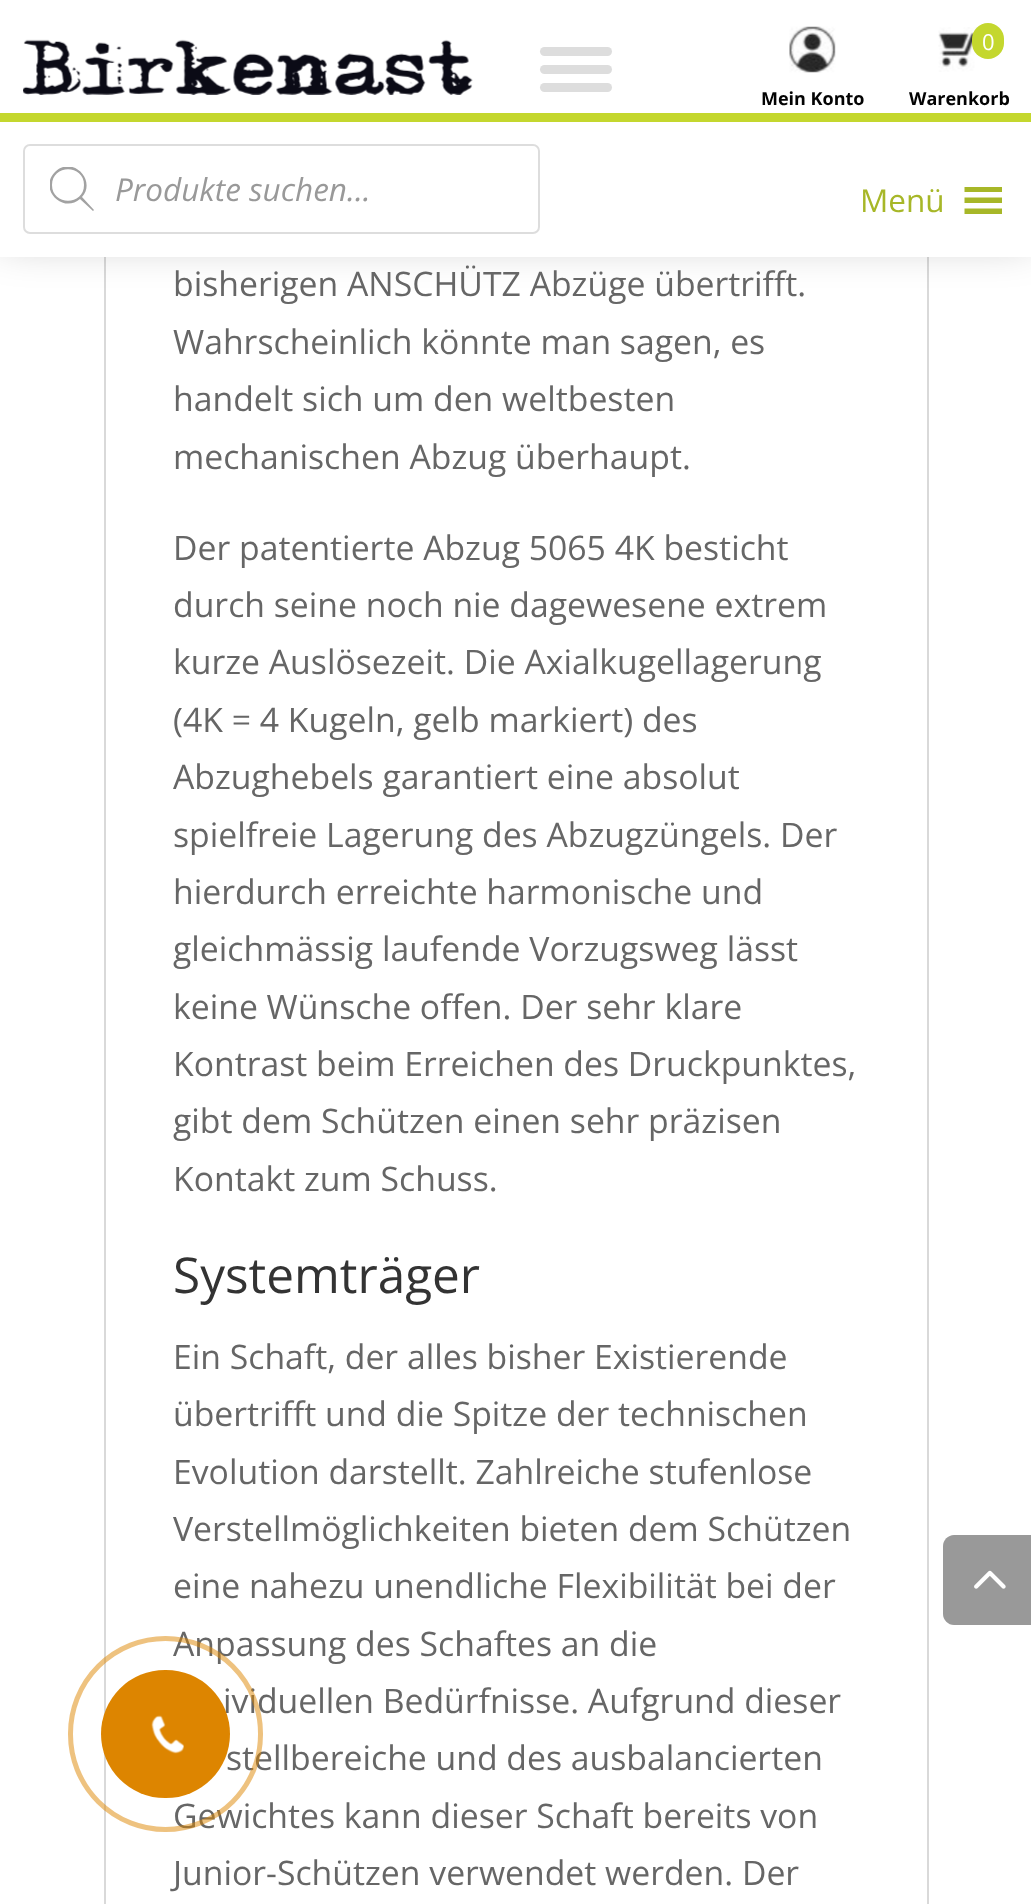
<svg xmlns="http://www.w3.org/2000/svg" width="1031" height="1904">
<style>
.a{font:bold 18px Open Sans;fill:#030303}
.b{font:22px Open Sans;fill:#fff}
.c{font:italic 31.5px Open Sans;fill:#999}
.d{font:31.5px Open Sans;fill:#a7b728}
.e{font:33.75px Open Sans;fill:#666}
.f{font:49.5px Open Sans;fill:#333}
</style>
<defs>
<clipPath id="clip1"><path d="M50 167h45v45H50z"/></clipPath>
</defs>
<rect width="100%" height="100%" fill="#fff"/>
<path fill="none" stroke="#d9d9d9" stroke-width="2" d="M105 -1h823v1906H105z"/>
<path fill="#0000004d" filter="blur(22.5px)" d="M0 -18h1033v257H0z"/>
<path fill="#fff" d="M0 0h1031v257H0z"/>
<path fill="#c4d72e" d="M0 113h1031v9H0z"/>
<image href="1.png" x="23" y="39" width="450" height="56"/>
<rect fill="#ddd" x="540" y="47" width="72" height="9" rx="4.5"/>
<rect fill="#ddd" x="540" y="65" width="72" height="9" rx="4.5"/>
<rect fill="#ddd" x="540" y="83" width="72" height="9" rx="4.5"/>
<image href="2.png" x="789" y="26" width="47" height="47"/>
<image href="3.png" x="938" y="27" width="46" height="45"/>
<rect fill="#c4d72e" x="972" y="23" width="32" height="36" rx="16"/>
<rect fill="none" stroke="#ddd" stroke-width="2" x="24" y="145" width="515" height="88" rx="6"/>
<g clip-path="url(#clip1)">
<path fill="#a2a2a2" d="M94 210l-12-13c15-17-10-42-27-25c-17 17 8 42 25 27l13 12zm-42-25c0-21 32-21 32 0c0 21-32 21-32 0z"/>
</g>
<path fill="#a7b728" d="M964.5 214h37.5v-5.5h-37.5zm0-27v5h37.5v-5zm0 16h37.5v-5.5h-37.5z"/>
<path fill="#999" d="M954 1535h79v90h-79c-6 0-11-5-11-11v-68c0-6 5-11 11-11z"/>
<image href="4.png" x="974" y="1570" width="32" height="19"/>
<text class="a" x="761" y="105">Mein Konto</text>
<text class="b" x="982" y="50">0</text>
<text class="a" x="909" y="105">Warenkorb</text>
<text class="c" x="115" y="201">Produkte suchen...</text>
<text class="d" x="860" y="212">Menü</text>
<text class="e" x="173" y="296">bisherigen ANSCHÜTZ Abzüge übertrifft.</text>
<text class="e" x="173" y="354">Wahrscheinlich könnte man sagen, es</text>
<text class="e" x="173" y="411">handelt sich um den weltbesten</text>
<text class="e" x="173" y="469">mechanischen Abzug überhaupt.</text>
<text class="e" x="173" y="560">Der patentierte Abzug 5065 4K besticht</text>
<text class="e" x="173" y="617">durch seine noch nie dagewesene extrem</text>
<text class="e" x="173" y="674">kurze Auslösezeit. Die Axialkugellagerung</text>
<text class="e" x="173" y="732">(4K = 4 Kugeln, gelb markiert) des</text>
<text class="e" x="173" y="789">Abzughebels garantiert eine absolut</text>
<text class="e" x="173" y="847">spielfreie Lagerung des Abzugzüngels. Der</text>
<text class="e" x="173" y="904">hierdurch erreichte harmonische und</text>
<text class="e" x="173" y="961">gleichmässig laufende Vorzugsweg lässt</text>
<text class="e" x="173" y="1019">keine Wünsche offen. Der sehr klare</text>
<text class="e" x="173" y="1076">Kontrast beim Erreichen des Druckpunktes,</text>
<text class="e" x="173" y="1133">gibt dem Schützen einen sehr präzisen</text>
<text class="e" x="173" y="1191">Kontakt zum Schuss.</text>
<text class="f" x="173" y="1293">Systemträger</text>
<text class="e" x="173" y="1369">Ein Schaft, der alles bisher Existierende</text>
<text class="e" x="173" y="1426">übertrifft und die Spitze der technischen</text>
<text class="e" x="173" y="1484">Evolution darstellt. Zahlreiche stufenlose</text>
<text class="e" x="173" y="1541">Verstellmöglichkeiten bieten dem Schützen</text>
<text class="e" x="173" y="1598">eine nahezu unendliche Flexibilität bei der</text>
<text class="e" x="173" y="1656">Anpassung des Schaftes an die</text>
<text class="e" x="223" y="1713">ividuellen Bedürfnisse. Aufgrund dieser</text>
<text class="e" x="226" y="1770">stellbereiche und des ausbalancierten</text>
<text class="e" x="173" y="1828">Gewichtes kann dieser Schaft bereits von</text>
<text class="e" x="173" y="1885">Junior-Schützen verwendet werden. Der</text>
<rect fill="none" stroke="#dd850080" stroke-width="5" x="70.5" y="1638.5" width="190" height="191" rx="95"/>
<rect fill="#dd8500" x="101" y="1670" width="129" height="128" rx="64"/>
<image href="5.png" x="151" y="1715" width="33" height="39"/>
</svg>
